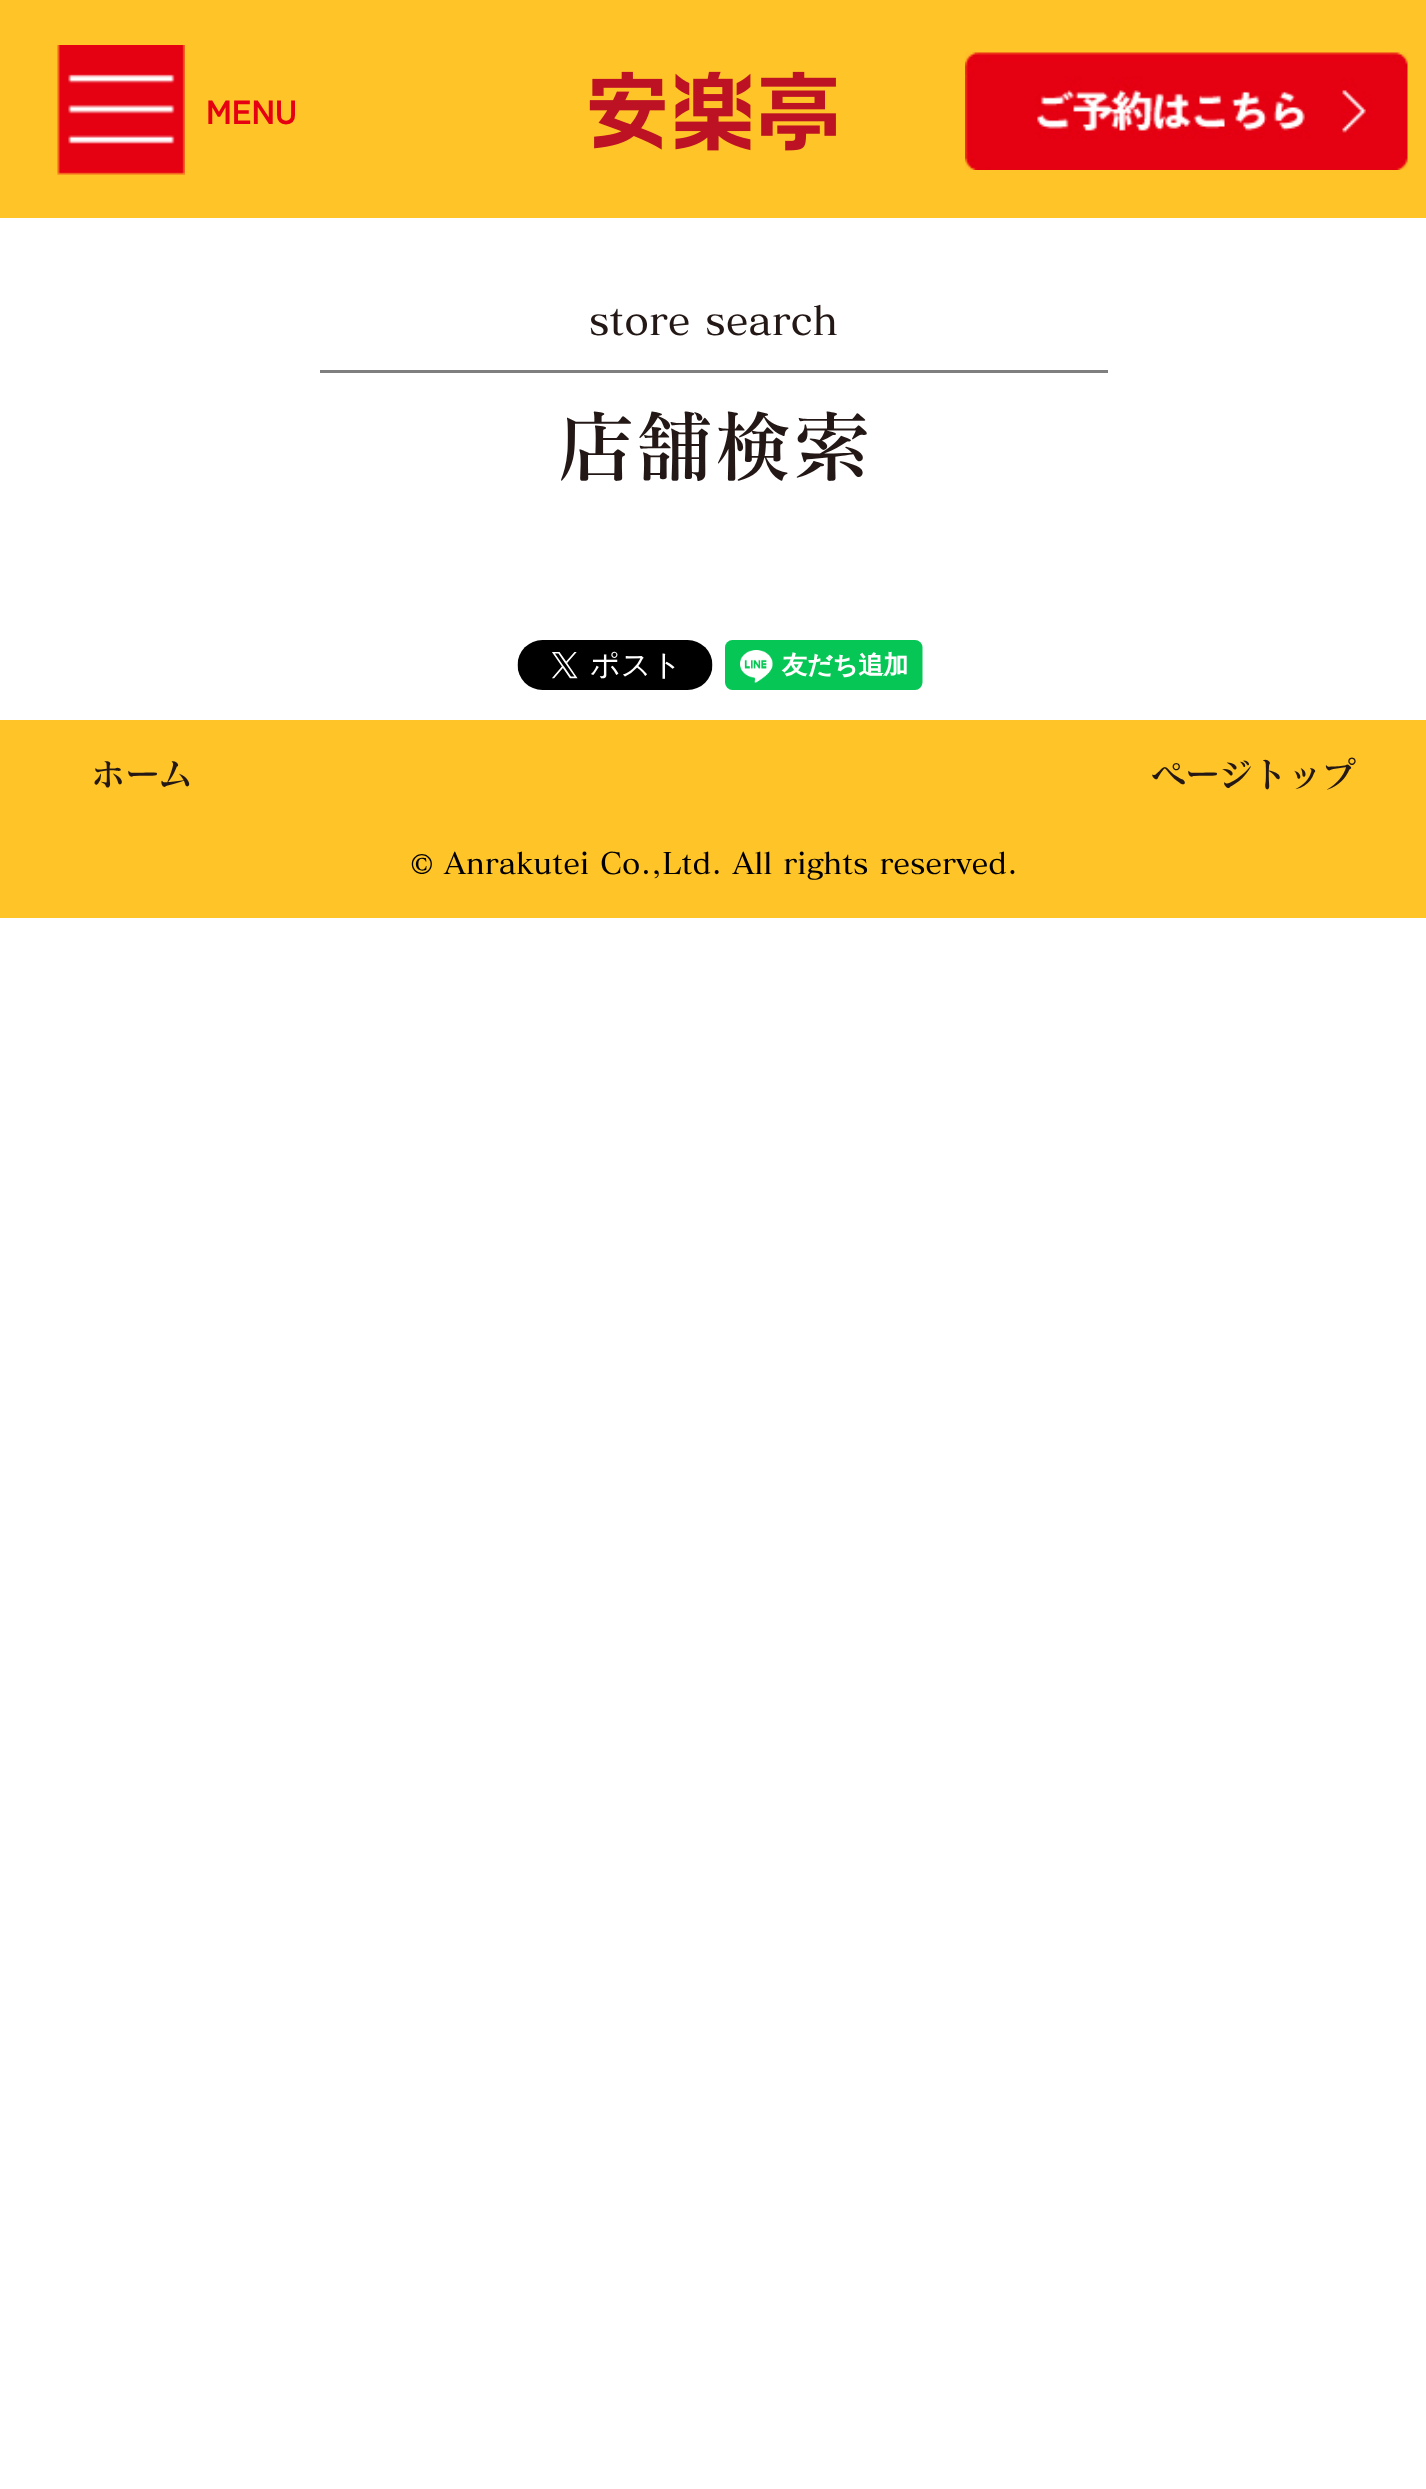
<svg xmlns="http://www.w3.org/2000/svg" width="1426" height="2489">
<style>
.a{font:bold 33.5px Zen Kaku Gothic New;fill:#e50112}
.b{font:600 40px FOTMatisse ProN;fill:#231815}
.c{font:600 78.5px FOTMatisse ProN;fill:#231815}
.d{font:600 34.5px FOTMatisse ProN;fill:#231815}
.e{font:600 29.65px FOTMatisse ProN;fill:#000}
</style>
<rect width="100%" height="100%" fill="#fff"/>
<path fill="#ffc528" d="M0 0h1426v218H0z"/>
<image href="1.png" x="57" y="45" width="128" height="130"/>
<image href="2.png" x="965" y="52" width="443" height="118"/>
<image href="3.png" x="589" y="71" width="247" height="80"/>
<path fill="#7f7f7f" d="M320 370h788v3H320z"/>
<image href="4.png" x="517" y="640" width="196" height="50"/>
<image href="5.png" x="725" y="640" width="198" height="50"/>
<path fill="#ffc528" d="M0 720h1426v198H0z"/>
<text class="a" x="206" y="124">MENU</text>
<text class="b" x="589" y="335">store search</text>
<text class="c" x="557" y="475">店舗検索</text>
<text class="d" x="91" y="787">ホーム</text>
<text class="d" x="1151" y="787">ページトップ</text>
<text class="e" x="410" y="874">© Anrakutei Co.,Ltd. All rights reserved.</text>
</svg>
